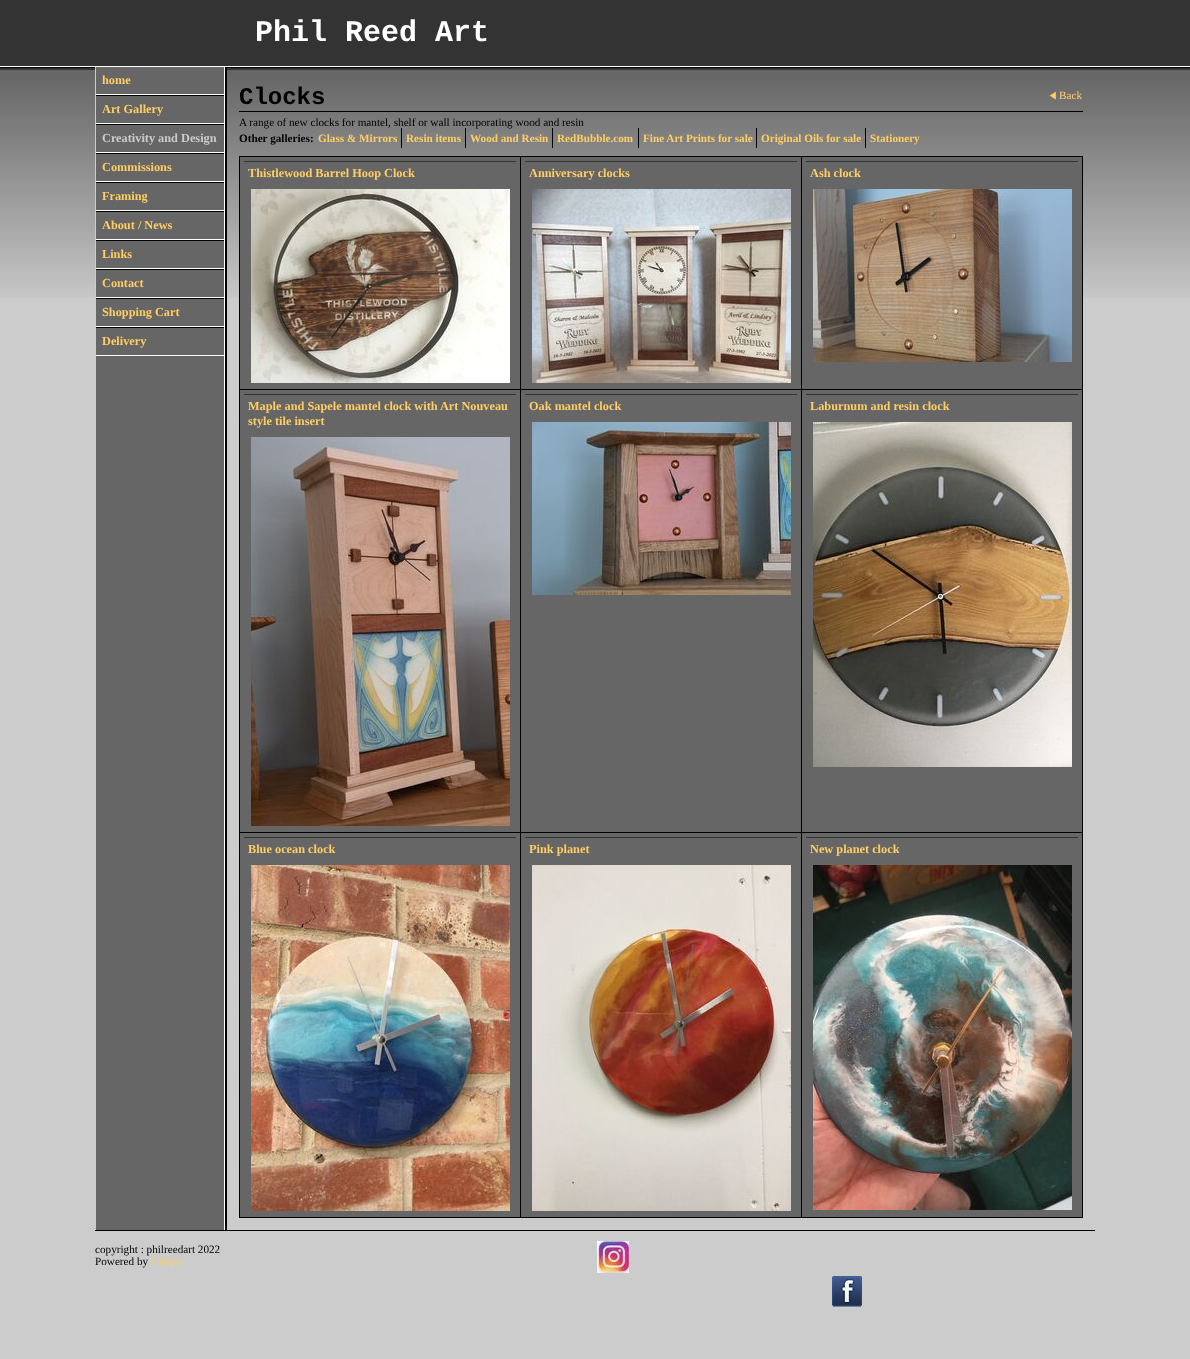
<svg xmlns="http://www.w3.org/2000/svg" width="1190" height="1359">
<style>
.a{font:bold 30px Liberation Mono;fill:#fff}
.b{font:bold 12.3px Liberation Serif;fill:#ffce63}
.c{font:bold 12.3px Liberation Serif;fill:#ccc}
.d{font:bold 24px Liberation Mono;fill:#000}
.e{font:11.2px Liberation Serif;fill:#ffce63}
.f{font:11.2px Liberation Serif;fill:#000}
.g{font:bold 11.2px Liberation Serif;fill:#000}
.h{font:bold 11.2px Liberation Serif;fill:#ffce63}
</style>
<rect width="100%" height="100%" fill="#ccc"/>
<path fill="#333" d="M0 0h1190v66H0z"/>
<path fill="#fff" d="M0 66h1190v1H0z"/>
<image href="1.png" x="0" y="68" width="1190" height="230"/>
<path fill="#000" d="M0 67h1190v1H0z"/>
<path fill="#666" d="M96 67h128v1163H96z"/>
<path fill="#000" d="M225 67h2v1163H225z"/>
<path fill="#fff" d="M224 67h1v1163H224z"/>
<path fill="#ccc" d="M95 67h1v231H95z"/>
<path fill="#fff" d="M96 94h128v1H96z"/>
<path fill="#000" d="M96 95h128v1H96z"/>
<path fill="#fff" d="M96 123h128v1H96z"/>
<path fill="#000" d="M96 124h128v1H96z"/>
<path fill="#fff" d="M96 152h128v1H96z"/>
<path fill="#000" d="M96 153h128v1H96z"/>
<path fill="#fff" d="M96 181h128v1H96z"/>
<path fill="#000" d="M96 182h128v1H96z"/>
<path fill="#fff" d="M96 210h128v1H96z"/>
<path fill="#000" d="M96 211h128v1H96z"/>
<path fill="#fff" d="M96 239h128v1H96z"/>
<path fill="#000" d="M96 240h128v1H96z"/>
<path fill="#fff" d="M96 268h128v1H96z"/>
<path fill="#000" d="M96 269h128v1H96z"/>
<path fill="#fff" d="M96 297h128v1H96z"/>
<path fill="#000" d="M96 298h128v1H96z"/>
<path fill="#fff" d="M96 326h128v1H96z"/>
<path fill="#000" d="M96 327h128v1H96z"/>
<path fill="#fff" d="M96 355h128v1H96z"/>
<path fill="#000" d="M239 111h844v1H239z"/>
<image href="2.png" x="1049" y="91" width="7" height="9"/>
<path fill="#000" d="M401 128h1v20H401z"/>
<path fill="#000" d="M465 128h1v20H465z"/>
<path fill="#000" d="M552 128h1v20H552z"/>
<path fill="#000" d="M638 128h1v20H638z"/>
<path fill="#000" d="M756 128h1v20H756z"/>
<path fill="#000" d="M865 128h1v20H865z"/>
<path fill="#000" d="M239 156h844v1H239z"/>
<path fill="#000" d="M239 156h1v1062H239z"/>
<path fill="#666" d="M240 157h280v232H240z"/>
<path fill="#000" d="M520 157h1v1061H520z"/>
<path fill="#000" d="M240 389h281v1H240z"/>
<path fill="#333" d="M244 161h272v1H244z"/>
<image href="3.png" x="251" y="189" width="259" height="194"/>
<path fill="#666" d="M521 157h280v232H521z"/>
<path fill="#000" d="M801 157h1v1061H801z"/>
<path fill="#000" d="M521 389h281v1H521z"/>
<path fill="#333" d="M525 161h272v1H525z"/>
<image href="4.png" x="532" y="189" width="259" height="194"/>
<path fill="#666" d="M802 157h280v232H802z"/>
<path fill="#000" d="M1082 157h1v1061H1082z"/>
<path fill="#000" d="M802 389h281v1H802z"/>
<path fill="#333" d="M806 161h272v1H806z"/>
<image href="5.png" x="813" y="189" width="259" height="173"/>
<path fill="#666" d="M240 390h280v442H240z"/>
<path fill="#000" d="M240 832h843v1H240z"/>
<path fill="#333" d="M244 394h272v1H244z"/>
<image href="6.png" x="251" y="437" width="259" height="389"/>
<path fill="#666" d="M521 390h280v442H521z"/>
<path fill="#333" d="M525 394h272v1H525z"/>
<image href="7.png" x="532" y="422" width="259" height="173"/>
<path fill="#666" d="M802 390h280v442H802z"/>
<path fill="#333" d="M806 394h272v1H806z"/>
<image href="8.png" x="813" y="422" width="259" height="345"/>
<path fill="#666" d="M240 833h280v384H240z"/>
<path fill="#000" d="M240 1217h843v1H240z"/>
<path fill="#333" d="M244 837h272v1H244z"/>
<image href="9.png" x="251" y="865" width="259" height="346"/>
<path fill="#666" d="M521 833h280v384H521z"/>
<path fill="#333" d="M525 837h272v1H525z"/>
<image href="10.png" x="532" y="865" width="259" height="346"/>
<path fill="#666" d="M802 833h280v384H802z"/>
<path fill="#333" d="M806 837h272v1H806z"/>
<image href="11.png" x="813" y="865" width="259" height="345"/>
<path fill="#000" d="M95 1230h1000v1H95z"/>
<image href="12.png" x="597" y="1241" width="32" height="32"/>
<image href="13.png" x="832" y="1276" width="30" height="31"/>
<text class="a" x="255" y="41">Phil Reed Art</text>
<text class="b" x="102" y="84">home</text>
<text class="b" x="102" y="113">Art Gallery</text>
<text class="c" x="102" y="142">Creativity and Design</text>
<text class="b" x="102" y="171">Commissions</text>
<text class="b" x="102" y="200">Framing</text>
<text class="b" x="102" y="229">About / News</text>
<text class="b" x="102" y="258">Links</text>
<text class="b" x="102" y="287">Contact</text>
<text class="b" x="102" y="316">Shopping Cart</text>
<text class="b" x="102" y="345">Delivery</text>
<text class="d" x="239" y="104">Clocks</text>
<text class="e" x="1059" y="99">Back</text>
<text class="f" x="239" y="126">A range of new clocks for mantel, shelf or wall incorporating wood and resin</text>
<text class="g" x="239" y="142">Other galleries:</text>
<text class="h" x="318" y="142">Glass &amp; Mirrors</text>
<text class="h" x="406" y="142">Resin items</text>
<text class="h" x="470" y="142">Wood and Resin</text>
<text class="h" x="557" y="142">RedBubble.com</text>
<text class="h" x="643" y="142">Fine Art Prints for sale</text>
<text class="h" x="761" y="142">Original Oils for sale</text>
<text class="h" x="870" y="142">Stationery</text>
<text class="b" x="248" y="177">Thistlewood Barrel Hoop Clock</text>
<text class="b" x="529" y="177">Anniversary clocks</text>
<text class="b" x="810" y="177">Ash clock</text>
<text class="b" x="248" y="410">Maple and Sapele mantel clock with Art Nouveau</text>
<text class="b" x="248" y="425">style tile insert</text>
<text class="b" x="529" y="410">Oak mantel clock</text>
<text class="b" x="810" y="410">Laburnum and resin clock</text>
<text class="b" x="248" y="853">Blue ocean clock</text>
<text class="b" x="529" y="853">Pink planet</text>
<text class="b" x="810" y="853">New planet clock</text>
<text class="f" x="95" y="1253">copyright : philreedart 2022</text>
<text class="f" x="95" y="1265">Powered by</text>
<text class="e" x="151" y="1265">Clikpic</text>
</svg>
